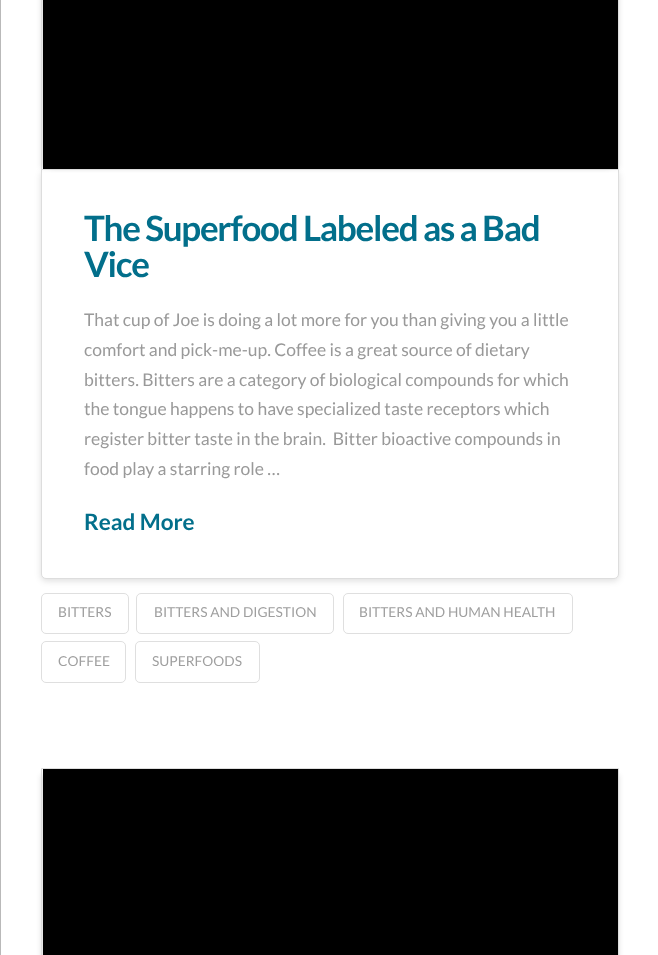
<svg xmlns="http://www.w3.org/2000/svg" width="658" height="955">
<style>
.a{font:bold 35px Lato;letter-spacing:-1.25px;fill:#026f8b}
.b{font:17.5px Lato;fill:#999}
.c{font:bold 22.5px Lato;fill:#026f8b}
.d{font:13.75px Lato;fill:#9f9f9f}
</style>
<rect width="100%" height="100%" fill="#fff"/>
<path fill="#b9b9b9" d="M0 0h1v955H0z"/>
<rect fill="#00000021" filter="blur(3px)" x="41" y="171" width="578" height="410" rx="5"/>
<path fill="#fff" stroke="#ddd" d="M41.5 169.5h577v404.5c0 2.5-2 4.5-4.5 4.5h-568c-2.5 0-4.5-2-4.5-4.5z"/>
<path fill="#00000021" filter="blur(2.5px)" d="M41 -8h568v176H41z"/>
<path fill="#00000021" filter="blur(2.5px)" d="M51 -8h568v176H51z"/>
<path fill="none" stroke="#ddd" d="M41.5 -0.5h577v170H41.5z"/>
<path fill="#000" d="M43 0h575v169H43z"/>
<rect fill="none" stroke="#dfdfdf" x="41.5" y="593.5" width="87" height="40" rx="4.5"/>
<rect fill="none" stroke="#dfdfdf" x="136.5" y="593.5" width="197" height="40" rx="4.5"/>
<rect fill="none" stroke="#dfdfdf" x="343.5" y="593.5" width="229" height="40" rx="4.5"/>
<rect fill="none" stroke="#dfdfdf" x="41.5" y="641.5" width="84" height="41" rx="4.5"/>
<rect fill="none" stroke="#dfdfdf" x="135.5" y="641.5" width="124" height="41" rx="4.5"/>
<path fill="#00000021" filter="blur(2.5px)" d="M41 775h568v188H41z"/>
<path fill="#00000021" filter="blur(2.5px)" d="M51 775h568v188H51z"/>
<path fill="none" stroke="#ddd" d="M41.5 768.5h577v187H41.5z"/>
<path fill="#000" d="M43 769h575v186H43z"/>
<text class="a" x="84" y="241">The Superfood Labeled as a Bad</text>
<text class="a" x="84" y="277">Vice</text>
<text class="b" x="84" y="326">That cup of Joe is doing a lot more for you than giving you a little</text>
<text class="b" x="84" y="356">comfort and pick-me-up. Coffee is a great source of dietary</text>
<text class="b" x="84" y="386">bitters. Bitters are a category of biological compounds for which</text>
<text class="b" x="84" y="415">the tongue happens to have specialized taste receptors which</text>
<text class="b" xml:space="preserve" x="84" y="445">register bitter taste in the brain.  Bitter bioactive compounds in</text>
<text class="b" x="84" y="475">food play a starring role …</text>
<text class="c" x="84" y="530">Read More</text>
<text class="d" x="58" y="617">BITTERS</text>
<text class="d" x="154" y="617">BITTERS AND DIGESTION</text>
<text class="d" x="359" y="617">BITTERS AND HUMAN HEALTH</text>
<text class="d" x="58" y="666">COFFEE</text>
<text class="d" x="152" y="666">SUPERFOODS</text>
</svg>
